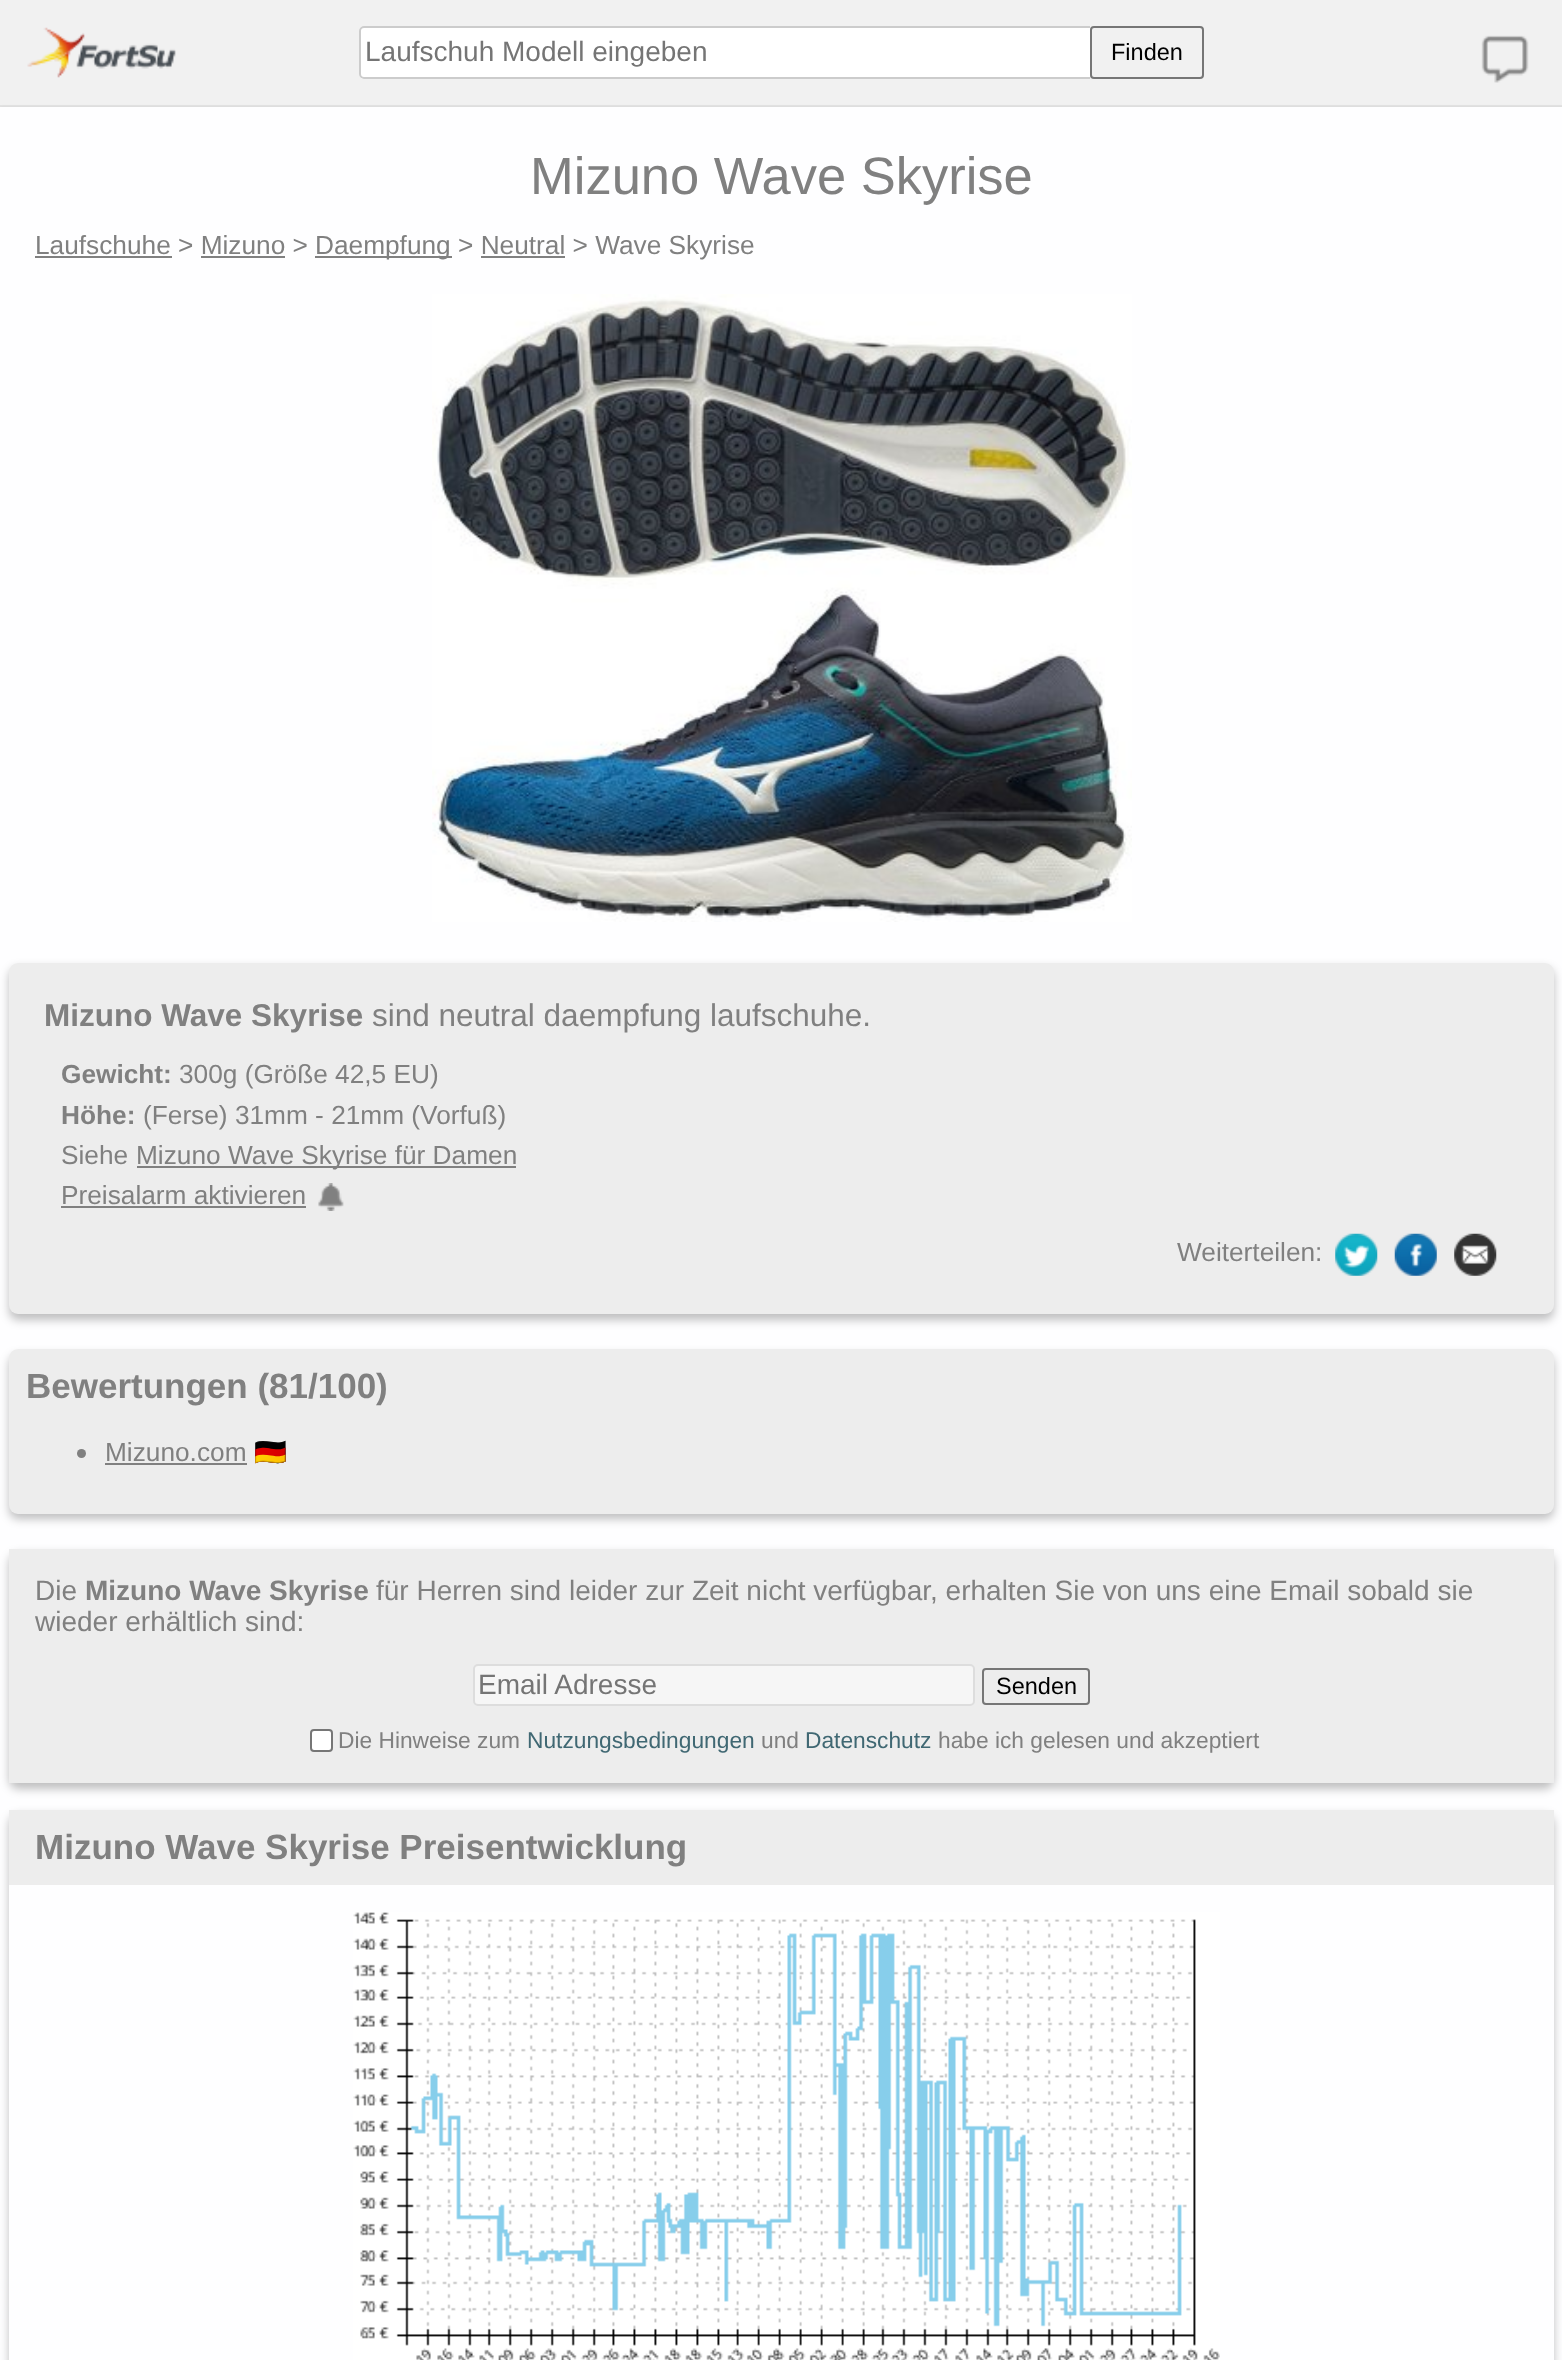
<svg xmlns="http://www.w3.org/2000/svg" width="1562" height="2360">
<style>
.a{font:28px Liberation Sans;fill:#757575}
.b{font:23.5px Liberation Sans;fill:#000}
.c{font:52.5px Liberation Sans;fill:#808080}
.d{font:26.25px Liberation Sans;fill:#808080}
.e{font:bold 31.5px Liberation Sans;fill:#808080}
.f{font:31.5px Liberation Sans;fill:#808080}
.g{font:bold 26.25px Liberation Sans;fill:#808080}
.h{font:bold 35px Liberation Sans;fill:#808080}
.i{font:26.25px Noto Color Emoji;fill:#808080}
.j{font:28px Liberation Sans;fill:#808080}
.k{font:bold 28px Liberation Sans;fill:#808080}
.l{font:22.75px Liberation Sans;fill:#808080}
.m{font:22.75px Liberation Sans;fill:#406873}
</style>
<defs>
<clipPath id="clip1"><path d="M359 26h731v53H359z"/></clipPath>
<clipPath id="clip2"><path d="M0 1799h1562v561h-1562zm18 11h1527c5 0 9 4 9 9v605c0 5-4 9-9 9h-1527c-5 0-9-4-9-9v-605c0-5 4-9 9-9z" clip-rule="evenodd"/></clipPath>
</defs>
<rect width="100%" height="100%" fill="#f1f1f1"/>
<path fill="#e5e5e5" d="M0 105h1562v2H0z"/>
<image href="1.png" x="27" y="27" width="149" height="51"/>
<path fill="#fff" d="M364 26h726v53h-726c-3 0-5-2-5-5v-43c0-3 2-5 5-5z"/>
<rect fill="none" stroke="#767676" stroke-width="2" x="1091" y="27" width="112" height="51" rx="3"/>
<g clip-path="url(#clip1)">
<rect fill="none" stroke="#ccc" stroke-width="2" x="360" y="27" width="740" height="51" rx="4"/>
</g>
<image href="2.png" x="1481" y="35" width="48" height="48"/>
<path fill="#888" filter="blur(2.5px)" d="M0 110h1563v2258H0z"/>
<path fill="#fefeff" d="M0 107h1562v2253H0z"/>
<path fill="#808080" d="M35 256h137v2H35z"/>
<path fill="#808080" d="M315 256h137v2H315z"/>
<path fill="#808080" d="M201 256h84v2H201z"/>
<path fill="#808080" d="M481 256h84v2H481z"/>
<image href="3.png" x="432" y="294" width="700" height="628"/>
<rect fill="#00000040" filter="blur(5px)" x="9" y="968" width="1545" height="352" rx="9"/>
<rect fill="#ededed" x="9" y="963" width="1545" height="351" rx="9"/>
<path fill="#808080" d="M137 1166h379v2H137z"/>
<path fill="#808080" d="M61 1206h245v2H61z"/>
<image href="4.png" x="318" y="1183" width="26" height="28"/>
<image href="5.png" x="1335" y="1233" width="43" height="43"/>
<image href="6.png" x="1394" y="1233" width="43" height="43"/>
<image href="7.png" x="1454" y="1233" width="43" height="43"/>
<rect fill="#00000040" filter="blur(5px)" x="9" y="1355" width="1545" height="164" rx="9"/>
<rect fill="#ededed" x="9" y="1349" width="1545" height="165" rx="9"/>
<circle fill="#808080" cx="81.5" cy="1453.5" r="4.5"/>
<path fill="#808080" d="M105 1463h142v2H105z"/>
<rect fill="#00000040" filter="blur(5px)" x="9" y="1554" width="1545" height="235" rx="9"/>
<path fill="#ededed" d="M9 1549h1545v234H9z"/>
<rect fill="#f6f6f6" stroke="#ddd" stroke-width="2" x="474" y="1665" width="500" height="40" rx="4"/>
<rect fill="none" stroke="#767676" stroke-width="2" x="983" y="1669" width="106" height="35" rx="3"/>
<rect fill="#fff" stroke="#767676" stroke-width="2" x="311" y="1730" width="21" height="21" rx="3"/>
<g clip-path="url(#clip2)">
<rect fill="#00000040" filter="blur(5px)" x="9" y="1815" width="1545" height="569" rx="9"/>
</g>
<path fill="#ededed" d="M9 1810h1545v75H9z"/>
<image href="8.png" x="353" y="1912" width="867" height="448"/>
<text class="a" x="365" y="61">Laufschuh Modell eingeben</text>
<text class="b" x="1111" y="60">Finden</text>
<text class="c" x="530" y="194">Mizuno Wave Skyrise</text>
<text class="d" x="35" y="254">Laufschuhe &gt; Mizuno &gt;</text>
<text class="d" x="315" y="254">Daempfung &gt; Neutral &gt; Wave Skyrise</text>
<text class="e" x="44" y="1026">Mizuno Wave Skyrise</text>
<text class="f" x="372" y="1026">sind neutral daempfung laufschuhe.</text>
<text class="g" x="61" y="1083">Gewicht:</text>
<text class="d" x="179" y="1083">300g (Größe 42,5 EU)</text>
<text class="g" x="61" y="1124">Höhe:</text>
<text class="d" x="143" y="1124">(Ferse) 31mm - 21mm (Vorfuß)</text>
<text class="d" x="61" y="1164">Siehe</text>
<text class="d" x="136" y="1164">Mizuno Wave Skyrise für Damen</text>
<text class="d" x="61" y="1204">Preisalarm aktivieren</text>
<text class="d" x="1177" y="1261">Weiterteilen:</text>
<text class="h" x="26" y="1398">Bewertungen (81/100)</text>
<text class="d" x="105" y="1461">Mizuno.com</text>
<text class="i" x="254" y="1461">🇩🇪</text>
<text class="j" x="35" y="1600">Die</text>
<text class="k" x="85" y="1600">Mizuno Wave Skyrise</text>
<text class="j" x="376" y="1600">für Herren sind leider zur Zeit nicht verfügbar, erhalten Sie von uns eine Email sobald sie</text>
<text class="j" x="35" y="1631">wieder erhältlich sind:</text>
<text class="a" x="478" y="1694">Email Adresse</text>
<text class="b" x="996" y="1694">Senden</text>
<text class="l" x="338" y="1748">Die Hinweise zum</text>
<text class="m" x="527" y="1748">Nutzungsbedingungen</text>
<text class="l" x="761" y="1748">und</text>
<text class="m" x="805" y="1748">Datenschutz</text>
<text class="l" x="938" y="1748">habe ich gelesen und akzeptiert</text>
<text class="h" x="35" y="1859">Mizuno Wave Skyrise Preisentwicklung</text>
</svg>
